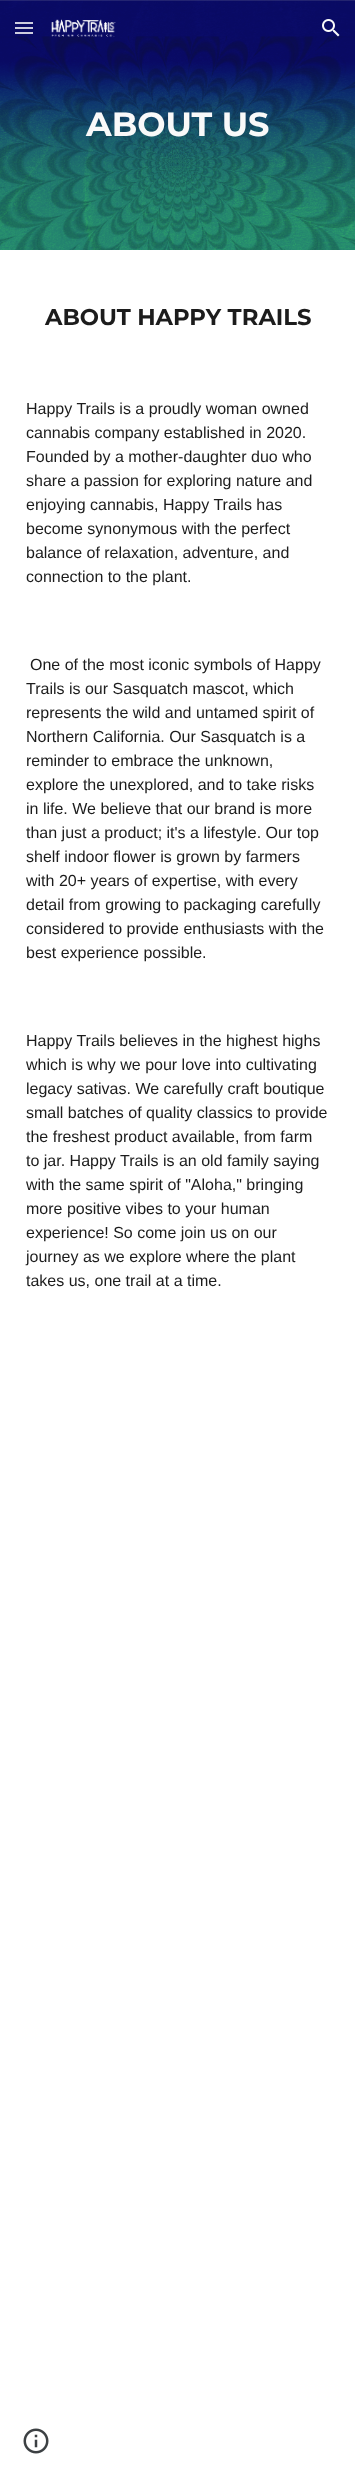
<svg xmlns="http://www.w3.org/2000/svg" width="355" height="2488">
<style>
.a{font:bold 33.5px Montserrat;fill:#f9f9f9}
.b{font:bold 22.75px Montserrat;fill:#1c1c1c}
.c{font:16px Liberation Sans;fill:#1c1c1c}
</style>
<rect width="100%" height="100%" fill="#fff"/>
<image href="3.png" x="0" y="0" width="355" height="250"/>
<path fill="#f9f9f9d1" d="M15 22h18v2H15z"/>
<path fill="#f9f9f9d1" d="M15 27h18v2H15z"/>
<path fill="#f9f9f9d1" d="M15 32h18v2H15z"/>
<image href="1.png" x="51" y="19" width="65" height="18"/>
<image href="2.png" x="322" y="19" width="18" height="18"/>
<image href="4.png" x="23" y="2428" width="26" height="26"/>
<text class="a" x="86" y="136">ABOUT US</text>
<text class="b" x="45" y="325">ABOUT HAPPY TRAILS</text>
<text class="c" x="26" y="414">Happy Trails is a proudly woman owned</text>
<text class="c" x="26" y="438">cannabis company established in 2020.</text>
<text class="c" x="26" y="462">Founded by a mother-daughter duo who</text>
<text class="c" x="26" y="486">share a passion for exploring nature and</text>
<text class="c" x="26" y="510">enjoying cannabis, Happy Trails has</text>
<text class="c" x="26" y="534">become synonymous with the perfect</text>
<text class="c" x="26" y="558">balance of relaxation, adventure, and</text>
<text class="c" x="26" y="582">connection to the plant.</text>
<text class="c" x="30" y="670">One of the most iconic symbols of Happy</text>
<text class="c" x="26" y="694">Trails is our Sasquatch mascot, which</text>
<text class="c" x="26" y="718">represents the wild and untamed spirit of</text>
<text class="c" x="26" y="742">Northern California. Our Sasquatch is a</text>
<text class="c" x="26" y="766">reminder to embrace the unknown,</text>
<text class="c" x="26" y="790">explore the unexplored, and to take risks</text>
<text class="c" x="26" y="814">in life. We believe that our brand is more</text>
<text class="c" x="26" y="838">than just a product; it's a lifestyle. Our top</text>
<text class="c" x="26" y="862">shelf indoor flower is grown by farmers</text>
<text class="c" x="26" y="886">with 20+ years of expertise, with every</text>
<text class="c" x="26" y="910">detail from growing to packaging carefully</text>
<text class="c" x="26" y="934">considered to provide enthusiasts with the</text>
<text class="c" x="26" y="958">best experience possible.</text>
<text class="c" x="26" y="1046">Happy Trails believes in the highest highs</text>
<text class="c" x="26" y="1070">which is why we pour love into cultivating</text>
<text class="c" x="26" y="1094">legacy sativas. We carefully craft boutique</text>
<text class="c" x="26" y="1118">small batches of quality classics to provide</text>
<text class="c" x="26" y="1142">the freshest product available, from farm</text>
<text class="c" x="26" y="1166">to jar. Happy Trails is an old family saying</text>
<text class="c" x="26" y="1190">with the same spirit of "Aloha," bringing</text>
<text class="c" x="26" y="1214">more positive vibes to your human</text>
<text class="c" x="26" y="1238">experience! So come join us on our</text>
<text class="c" x="26" y="1262">journey as we explore where the plant</text>
<text class="c" x="26" y="1286">takes us, one trail at a time.</text>
</svg>
